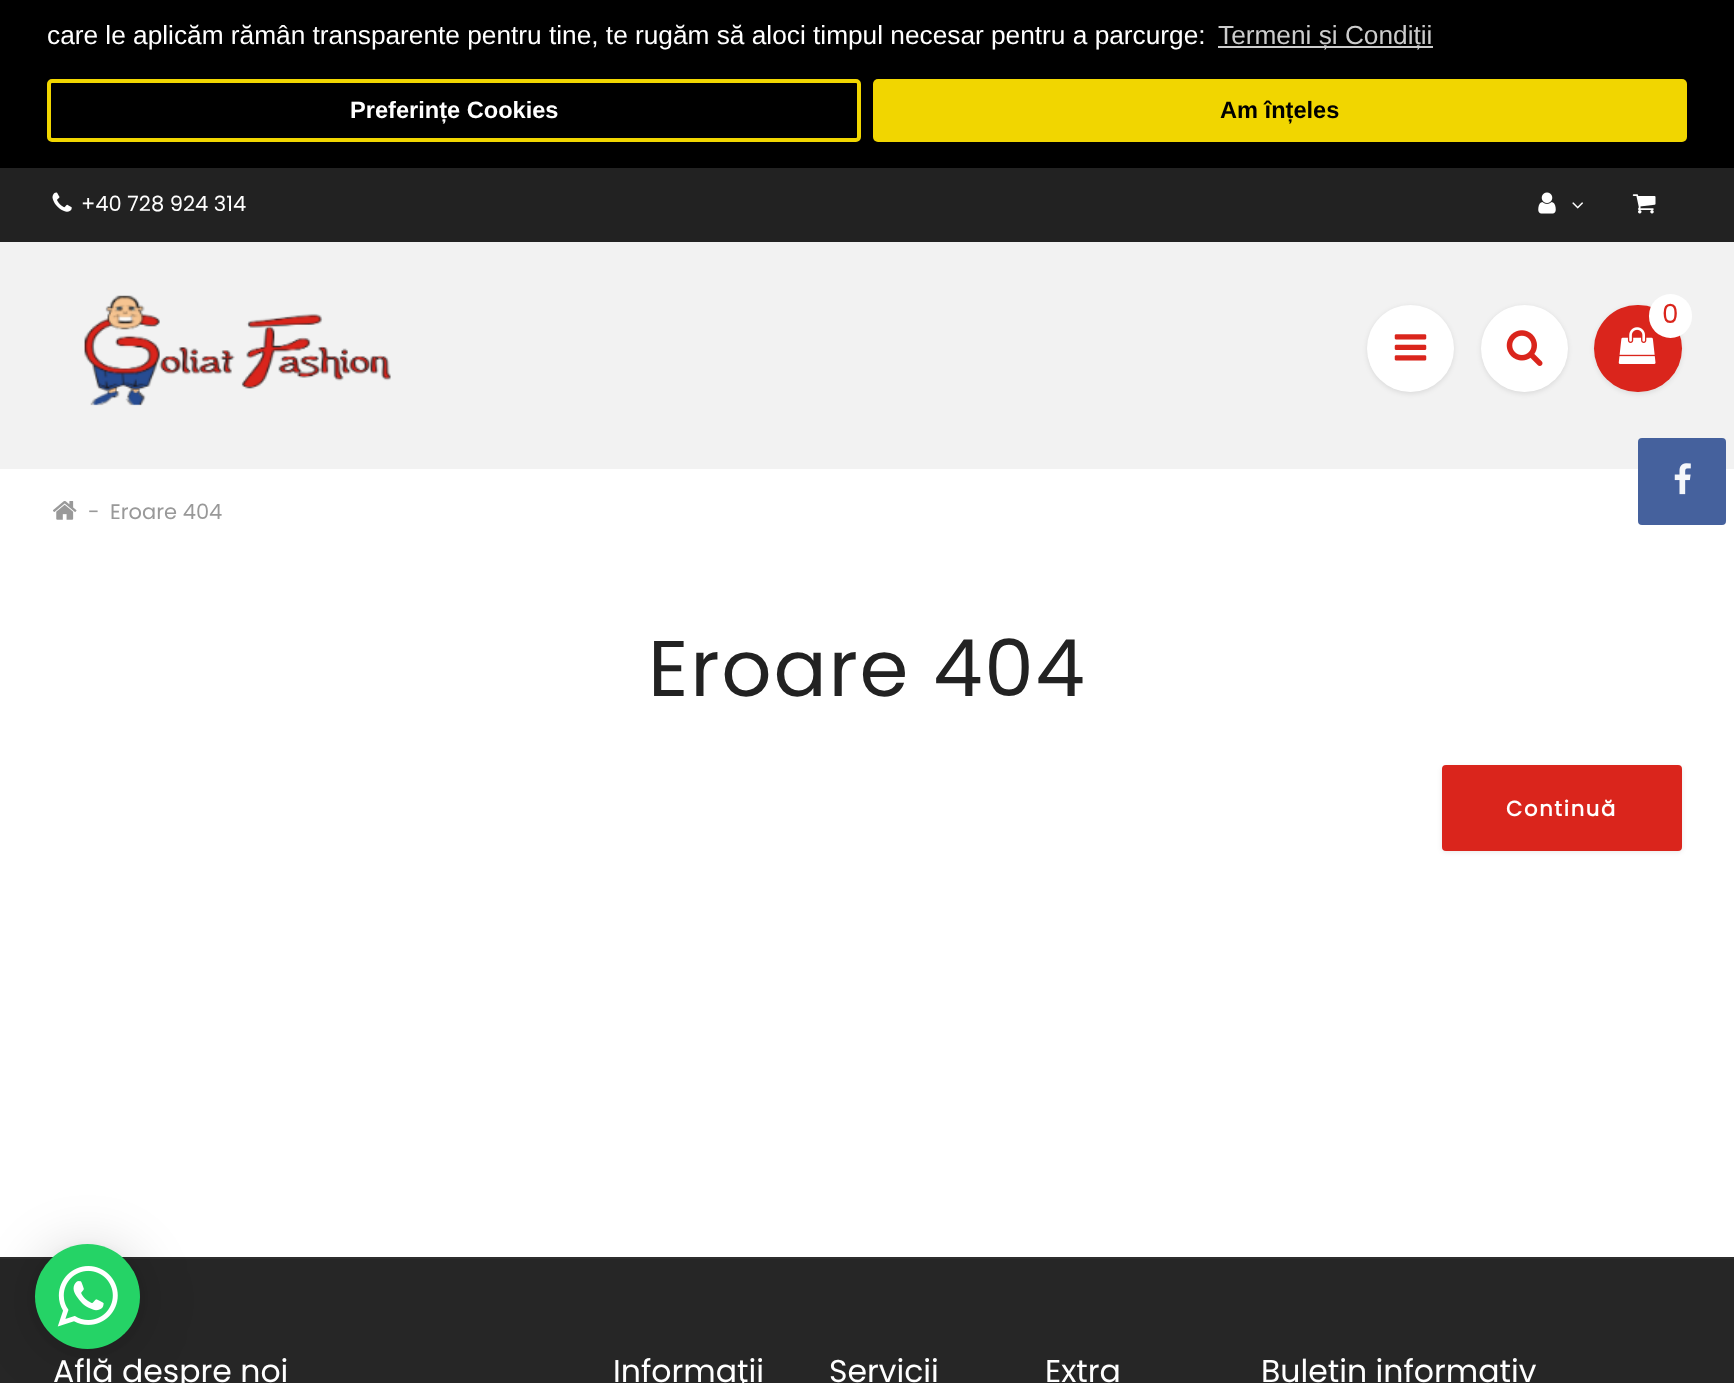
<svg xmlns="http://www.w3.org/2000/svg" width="1734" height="1383">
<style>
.a{font:26.25px Liberation Sans;fill:#fff}
.b{font:26.25px Liberation Sans;fill:#ccc}
.c{font:bold 23.6px Liberation Sans;fill:#fff}
.d{font:bold 23.6px Liberation Sans;fill:#000}
.e{font:21px Poppins;fill:#fff}
.f{font:26.25px Poppins;fill:#da251c}
.g{font:21px Poppins;fill:#999}
.h{font:78.75px Poppins;letter-spacing:1.75px;fill:#222}
.i{font:bold 21px Poppins;letter-spacing:1.75px;fill:#fff}
.j{font:31.5px Poppins;fill:#fff}
</style>
<rect width="100%" height="100%" fill="#fff"/>
<path fill="#000" d="M0 0h1734v168H0z"/>
<path fill="#ccc" d="M1218 46h215v2H1218z"/>
<rect fill="none" stroke="#f1d600" stroke-width="4" x="49" y="81" width="810" height="59" rx="3"/>
<rect fill="#f1d600" x="873" y="79" width="814" height="63" rx="5"/>
<path fill="#f2f2f2" d="M0 242h1734v227H0z"/>
<path fill="#222" d="M0 168h1734v74H0z"/>
<image href="1.png" x="52" y="192" width="20" height="20"/>
<image href="2.png" x="1538" y="192" width="18" height="22"/>
<image href="3.png" x="1572" y="202" width="11" height="7"/>
<image href="4.png" x="1632" y="194" width="24" height="20"/>
<image href="5.png" x="84" y="295" width="307" height="111"/>
<rect fill="#00000017" filter="blur(2.5px)" x="1367" y="306" width="87" height="88" rx="43.5"/>
<circle fill="#fff" cx="1410.5" cy="348.5" r="43.5"/>
<image href="6.png" x="1394" y="334" width="33" height="27"/>
<rect fill="#00000017" filter="blur(2.5px)" x="1481" y="306" width="87" height="88" rx="43.5"/>
<circle fill="#fff" cx="1524.5" cy="348.5" r="43.5"/>
<image href="7.png" x="1506" y="330" width="37" height="36"/>
<rect fill="#00000017" filter="blur(2.5px)" x="1594" y="306" width="88" height="88" rx="44"/>
<rect fill="#da251c" x="1594" y="305" width="88" height="87" rx="43.5"/>
<image href="8.png" x="1618" y="327" width="38" height="37"/>
<rect fill="#fff" x="1649" y="294" width="43" height="44" rx="21.5"/>
<image href="9.png" x="53" y="501" width="24" height="19"/>
<rect fill="#00000017" filter="blur(2.5px)" x="1442" y="767" width="240" height="85" rx="4"/>
<rect fill="#da251c" stroke="#da251c" stroke-width="4" x="1444" y="767" width="236" height="82" rx="2"/>
<path fill="#262626" d="M0 1259h1734v124H0z"/>
<path fill="#2d2d2d" d="M0 1257h1734v2H0z"/>
<rect fill="#3b5998f2" x="1638" y="438" width="88" height="87" rx="4"/>
<image href="10.png" x="1674" y="463" width="17" height="32"/>
<rect fill="#00000029" filter="blur(28px)" x="35" y="1248" width="105" height="105" rx="52.5"/>
<rect fill="#0000000f" filter="blur(5px)" x="35" y="1246" width="105" height="105" rx="52.5"/>
<circle fill="#25d366" cx="87.5" cy="1296.5" r="52.5"/>
<image href="11.png" x="57" y="1266" width="61" height="61"/>
<text class="a" x="47" y="44">care le aplicăm rămân transparente pentru tine, te rugăm să aloci timpul necesar pentru a parcurge:</text>
<text class="b" x="1218" y="44">Termeni și Condiții</text>
<text class="c" x="350" y="118">Preferințe Cookies</text>
<text class="d" x="1220" y="118">Am înțeles</text>
<text class="e" x="81" y="211">+40 728 924 314</text>
<text class="f" x="1662" y="323">0</text>
<text class="g" x="88" y="519">-</text>
<text class="g" x="110" y="519">Eroare 404</text>
<text class="h" x="648" y="696">Eroare 404</text>
<text class="i" x="1506" y="816">Continuă</text>
<text class="j" x="53" y="1382">Află despre noi</text>
<text class="j" x="613" y="1382">Informaţii</text>
<text class="j" x="829" y="1382">Servicii</text>
<text class="j" x="1045" y="1382">Extra</text>
<text class="j" x="1261" y="1382">Buletin informativ</text>
</svg>
